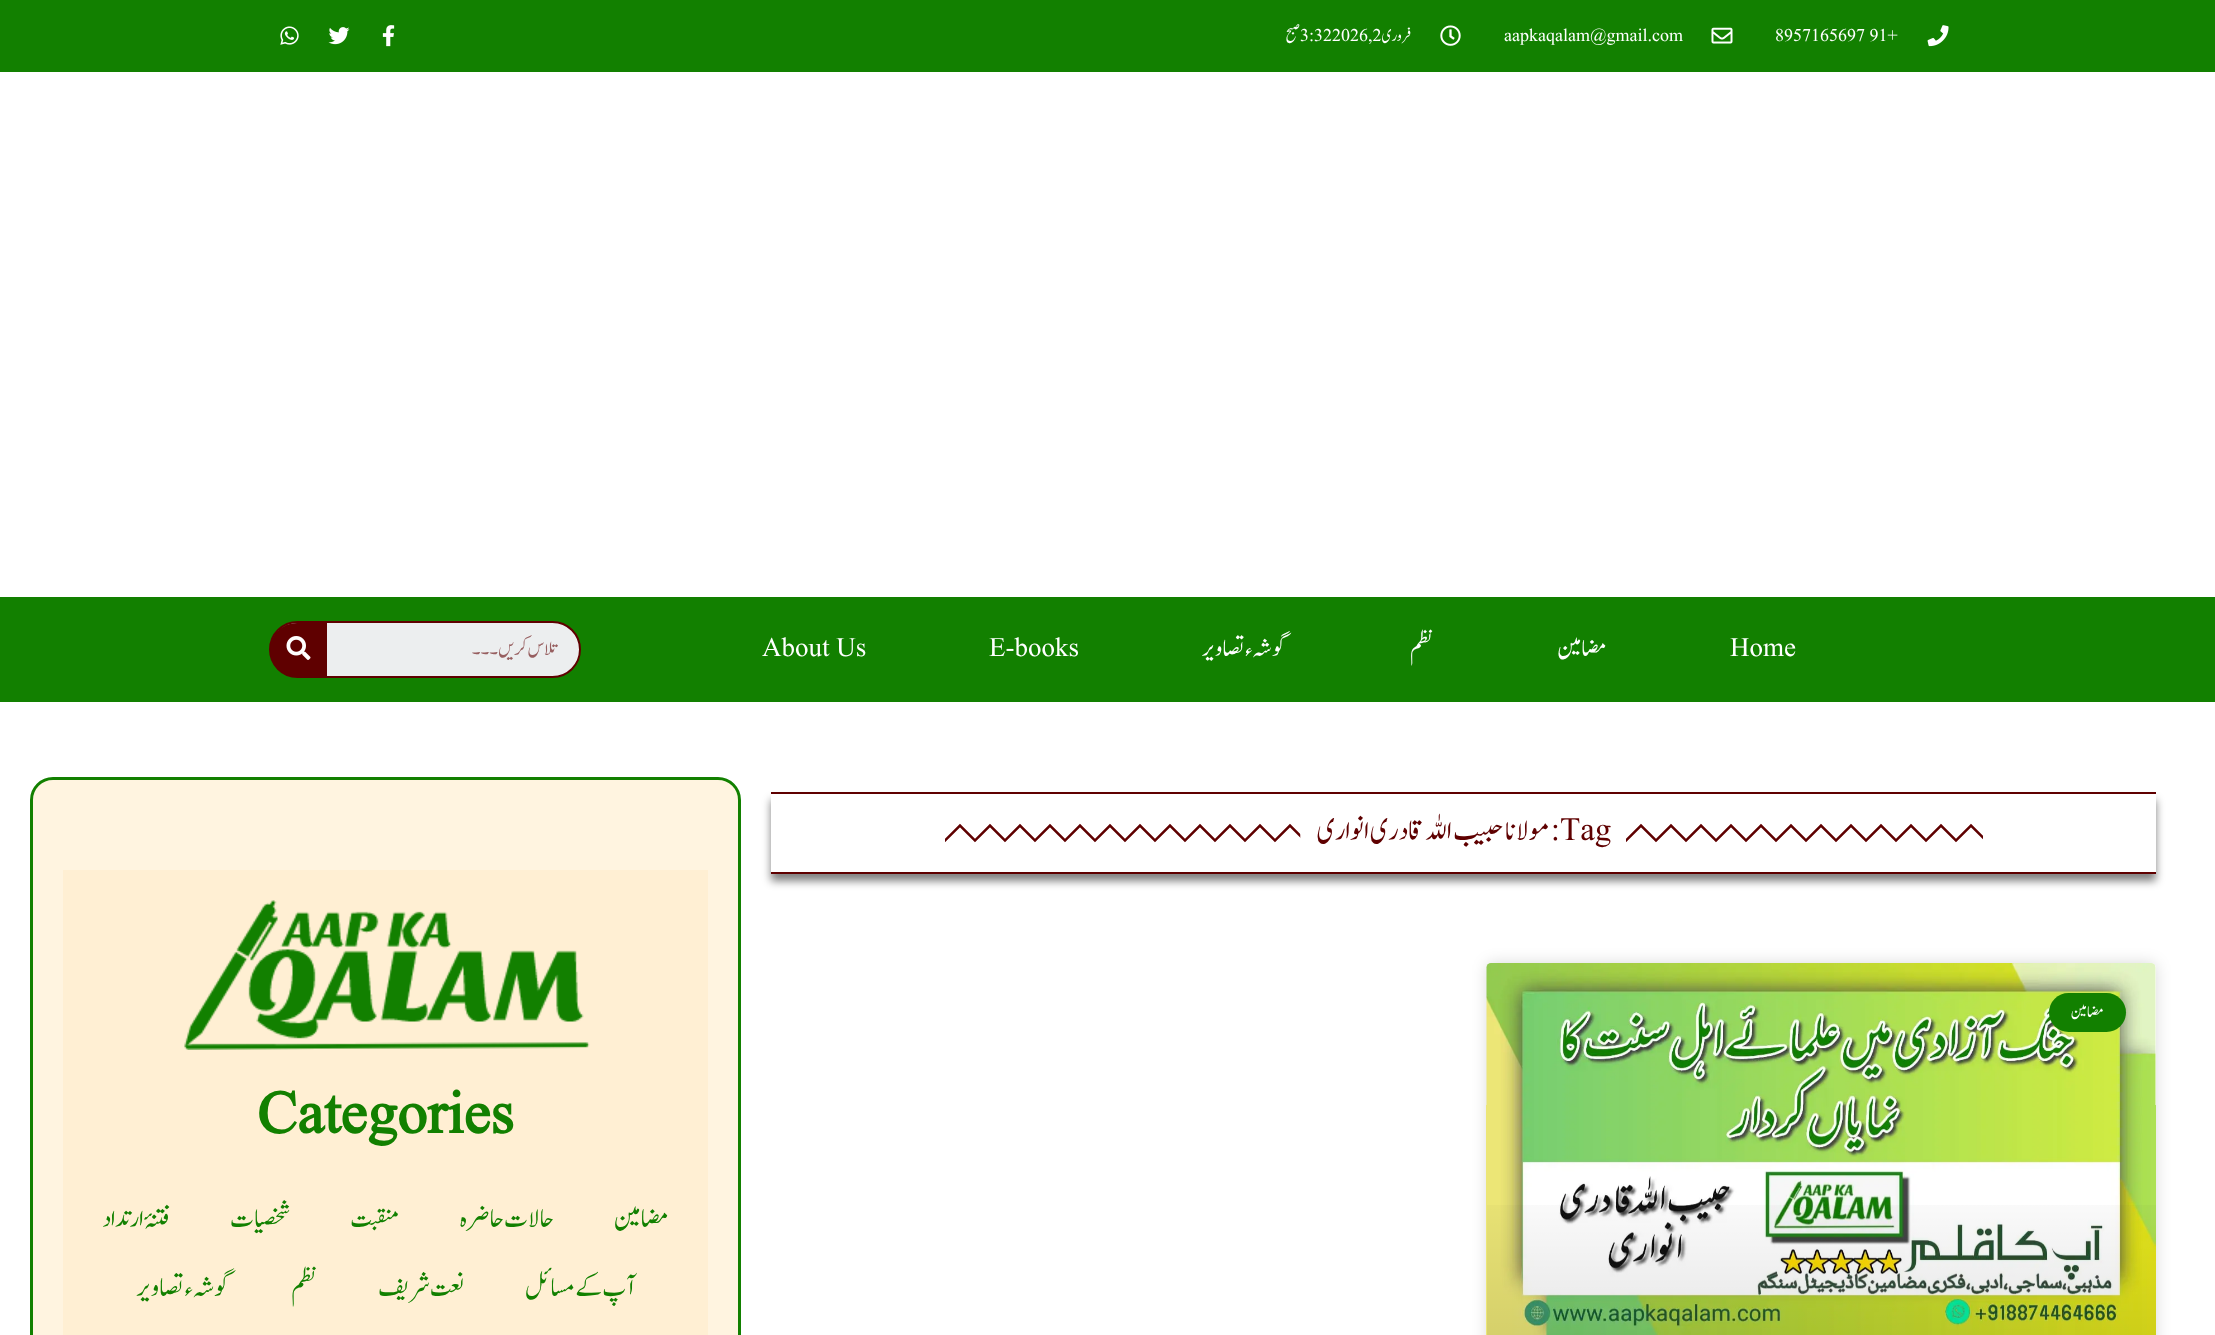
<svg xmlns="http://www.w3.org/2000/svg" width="2215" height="1335">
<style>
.a{font:18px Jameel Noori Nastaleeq;fill:#fff}
.b{font:18px Jameel Noori Nastaleeq;direction:rtl;fill:#fff}
.c{font:27px Jameel Noori Nastaleeq;fill:#fff}
.d{font:27px Jameel Noori Nastaleeq;direction:rtl;fill:#fff}
.e{font:22.5px Jameel Noori Nastaleeq;direction:rtl;fill:#975f60}
.f{font:33px Jameel Noori Nastaleeq;fill:#5f0000}
.g{font:33px Jameel Noori Nastaleeq;direction:rtl;fill:#5f0000}
.h{font:bold 60px Jameel Noori Nastaleeq;fill:#128000}
.i{font:30px Jameel Noori Nastaleeq;direction:rtl;fill:#128000}
</style>
<defs>
<linearGradient id="g1" gradientUnits="userSpaceOnUse" x1="1821" y1="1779" x2="1821" y2="963"><stop offset="0" stop-color="#000" stop-opacity="0.35"/><stop offset="0.75" stop-color="#000" stop-opacity="0"/></linearGradient>
</defs>
<rect width="100%" height="100%" fill="#fff"/>
<path fill="#128000" d="M0 0h2215v72H0z"/>
<image href="1.png" x="1927" y="25" width="22" height="22"/>
<image href="2.png" x="1711" y="27" width="22" height="17"/>
<image href="3.png" x="1440" y="25" width="21" height="21"/>
<image href="4.png" x="382" y="25" width="13" height="22"/>
<image href="5.png" x="328" y="27" width="22" height="18"/>
<image href="6.png" x="280" y="26" width="19" height="19"/>
<path fill="#128000" d="M0 597h2215v105H0z"/>
<rect fill="#eceeef" stroke="#5f0000" stroke-width="2" x="270" y="622" width="310" height="55" rx="27.5"/>
<path fill="#5f0000" d="M297 623h30v54h-30c-15 0-27-12-27-27c0-15 12-27 27-27z"/>
<image href="7.png" x="286" y="636" width="25" height="24"/>
<path fill="#00000080" filter="blur(4px)" d="M771 800h1385v81H771z"/>
<path fill="#fff" d="M771 794h1385v78H771z"/>
<path fill="#5f0000" d="M771 792h1385v2H771z"/>
<path fill="#5f0000" d="M771 872h1385v2H771z"/>
<image href="8.png" x="1626" y="823" width="357" height="20"/>
<image href="9.png" x="945" y="823" width="356" height="20"/>
<rect fill="#00000026" filter="blur(7.5px)" x="1487" y="963" width="669" height="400" rx="5"/>
<rect fill="#fff" x="1487" y="963" width="669" height="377" rx="5"/>
<image href="10.png" x="1486" y="963" width="670" height="372"/>
<path fill="url(#g1)" d="M1487 1205h669v130H1487z"/>
<rect fill="#128000" x="2049" y="993" width="77" height="39" rx="19.5"/>
<rect fill="#fff4e0" stroke="#128000" stroke-width="3" x="31.5" y="778.5" width="708" height="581" rx="21.5"/>
<path fill="#ffefd3" d="M63 870h645v465H63z"/>
<image href="11.png" x="184" y="900" width="406" height="150"/>
<text class="a" x="1775" y="41">8957165697 91+</text>
<text class="a" x="1504" y="41">aapkaqalam@gmail.com</text>
<text class="b" x="1411" y="41">فروری</text>
<text class="a" x="1300" y="41">3:322026,2</text>
<text class="b" x="1300" y="41">صبح</text>
<text class="c" x="1730" y="656">Home</text>
<text class="d" x="1607" y="656">مضامین</text>
<text class="d" x="1434" y="656">نظم</text>
<text class="d" x="1287" y="656">گوشہء تصاویر</text>
<text class="c" x="989" y="656">E-books</text>
<text class="c" x="762" y="656">About Us</text>
<text class="e" x="559" y="655">تلاس کریں ۔۔۔</text>
<text class="f" x="1560" y="840">Tag</text>
<text class="g" x="1560" y="840" word-spacing="1.5">: مولانا حبیب اللہ قادری انواری</text>
<text class="b" x="2104" y="1017">مضامین</text>
<text class="h" x="257" y="1133">Categories</text>
<text class="i" x="669" y="1227">مضامین</text>
<text class="i" x="554" y="1227">حالات حاضرہ</text>
<text class="i" x="399" y="1227">منقبت</text>
<text class="i" x="291" y="1227">شخصیات</text>
<text class="i" x="170" y="1227">فتنۂ ارتداد</text>
<text class="i" x="635" y="1296">آپ کے مسائل</text>
<text class="i" x="465" y="1296">نعت شریف</text>
<text class="i" x="318" y="1296">نظم</text>
<text class="i" x="231" y="1296">گوشہء تصاویر</text>
</svg>
